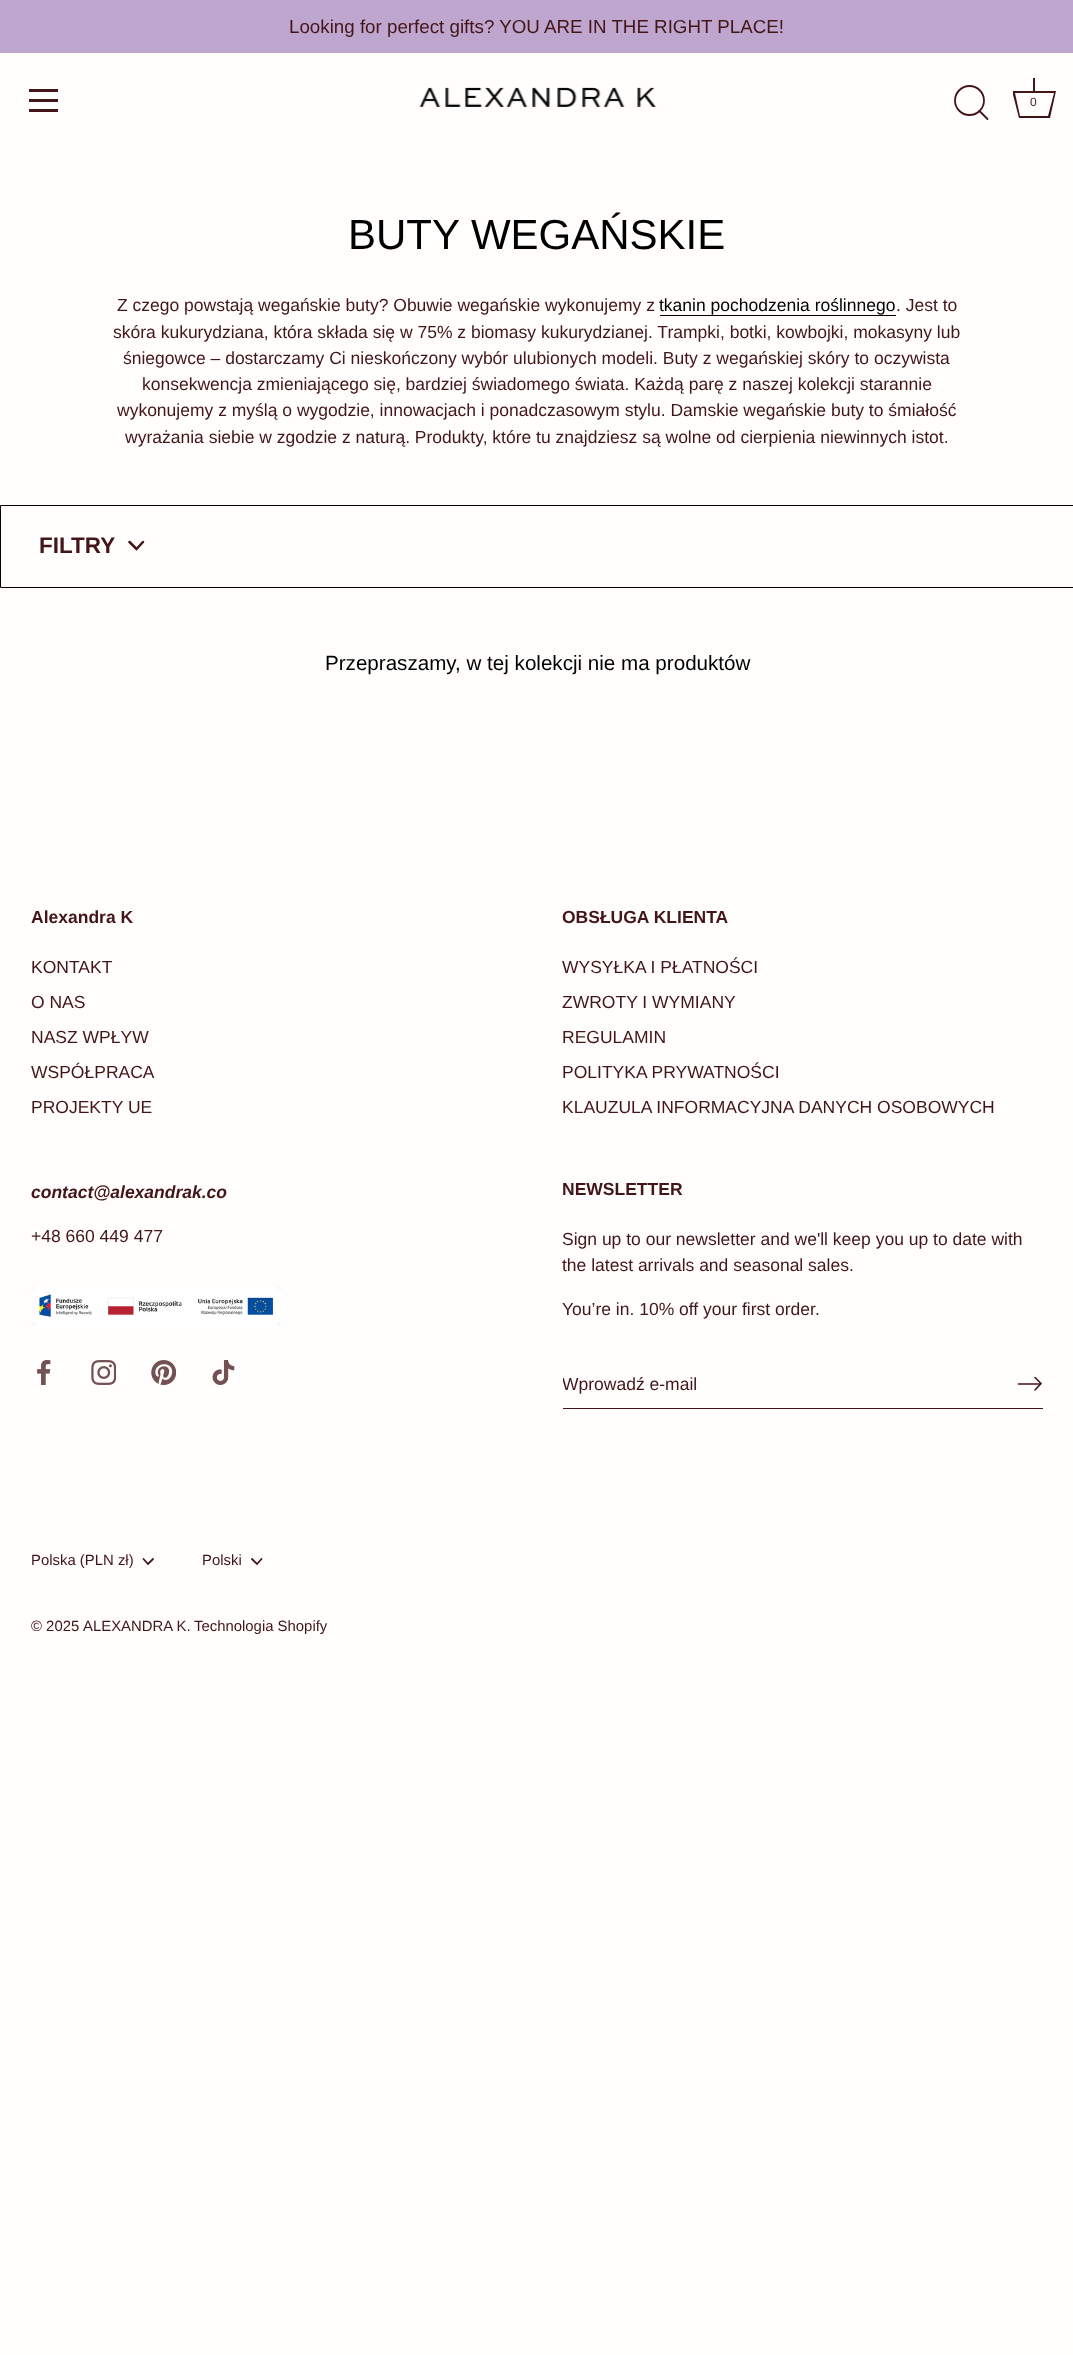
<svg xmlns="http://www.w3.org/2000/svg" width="1073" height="2355">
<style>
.a{font:18.75px Liberation Sans;fill:#431519}
.b{font:12px Liberation Sans;fill:#431519}
.c{font:42px Liberation Sans;fill:#000}
.d{font:17.5px Liberation Sans;fill:#431519}
.e{font:17.5px Liberation Sans;fill:#000}
.f{font:bold 22.5px Liberation Sans;fill:#431519}
.g{font:20.6px Liberation Sans;fill:#000}
.h{font:bold 17.5px Liberation Sans;fill:#431519}
.i{font:italic bold 17.5px Liberation Sans;fill:#431519}
.j{font:14.9px Liberation Sans;fill:#431519}
</style>
<defs>
<clipPath id="clip1"><path d="M1013 76h43v44H1013z"/></clipPath>
<clipPath id="clip2"><path d="M563 1374h480v20H563z"/></clipPath>
</defs>
<rect width="100%" height="100%" fill="#fffefd"/>
<path fill="#bea6ce" d="M0 0h1073v53H0z"/>
<path fill="#431519" d="M29 89h29v3H29z"/>
<path fill="#431519" d="M29 99h29v3H29z"/>
<path fill="#431519" d="M29 109h29v3H29z"/>
<image href="1.png" x="419" y="87" width="238" height="21"/>
<circle fill="none" stroke="#431519" stroke-width="1.8" cx="969.5" cy="100.5" r="14.5"/>
<path fill="none" stroke="#431519" stroke-width="1.8" stroke-linecap="round" stroke-linejoin="round" d="M987.5 119l-8-8"/>
<path fill="#431519" d="M1033 78h2v13H1033z"/>
<g clip-path="url(#clip1)">
<path fill="#431519" d="M1054 93l-6 23h-28l-5-23h39m2-2h-44l7 27h31z"/>
</g>
<path fill="#000" d="M660 315h236v1H660z"/>
<path fill="none" stroke="#000" d="M0.5 505.5h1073v82H0.5z"/>
<path fill="none" stroke="#431519" stroke-width="2.5" stroke-linecap="round" d="M129.5 542l7 7l6.5-7"/>
<image href="2.png" x="31" y="1286" width="251" height="39"/>
<image href="3.png" x="37" y="1360" width="14" height="25"/>
<image href="4.png" x="91" y="1360" width="25" height="25"/>
<image href="5.png" x="151" y="1360" width="25" height="25"/>
<image href="6.png" x="212" y="1360" width="23" height="25"/>
<path fill="#431519" d="M563 1408h480v1H563z"/>
<path fill="none" stroke="#431519" stroke-width="1.6" stroke-linecap="round" d="M1035 1390l6-6.5l-6-6"/>
<path fill="none" stroke="#431519" stroke-width="1.6" stroke-linecap="round" stroke-linejoin="round" d="M1040.5 1384h-22"/>
<path fill="none" stroke="#431519" stroke-width="1.8" stroke-linecap="round" d="M143.5 1559l4.5 5l5-5"/>
<path fill="none" stroke="#431519" stroke-width="1.8" stroke-linecap="round" d="M252 1559l5 5l4.5-5"/>
<text class="a" x="289" y="33">Looking for perfect gifts? YOU ARE IN THE RIGHT PLACE!</text>
<text class="b" x="1030" y="106">0</text>
<text class="c" x="348" y="249">BUTY WEGAŃSKIE</text>
<text class="d" x="117" y="311">Z czego powstają wegańskie buty? Obuwie wegańskie wykonujemy z</text>
<text class="e" x="659" y="311">tkanin pochodzenia roślinnego</text>
<text class="d" x="896" y="311">. Jest to</text>
<text class="d" x="113" y="338">skóra kukurydziana, która składa się w 75% z biomasy kukurydzianej. Trampki, botki, kowbojki, mokasyny lub</text>
<text class="d" x="123" y="364">śniegowce – dostarczamy Ci nieskończony wybór ulubionych modeli. Buty z wegańskiej skóry to oczywista</text>
<text class="d" x="142" y="390">konsekwencja zmieniającego się, bardziej świadomego świata. Każdą parę z naszej kolekcji starannie</text>
<text class="d" x="117" y="416">wykonujemy z myślą o wygodzie, innowacjach i ponadczasowym stylu. Damskie wegańskie buty to śmiałość</text>
<text class="d" x="125" y="443">wyrażania siebie w zgodzie z naturą. Produkty, które tu znajdziesz są wolne od cierpienia niewinnych istot.</text>
<text class="f" x="39" y="553">FILTRY</text>
<text class="g" x="325" y="670">Przepraszamy, w tej kolekcji nie ma produktów</text>
<text class="h" x="31" y="923">Alexandra K</text>
<text class="d" x="31" y="973">KONTAKT</text>
<text class="d" x="31" y="1008">O NAS</text>
<text class="d" x="31" y="1043">NASZ WPŁYW</text>
<text class="d" x="31" y="1078">WSPÓŁPRACA</text>
<text class="d" x="31" y="1113">PROJEKTY UE</text>
<text class="h" x="562" y="923">OBSŁUGA KLIENTA</text>
<text class="d" x="562" y="973">WYSYŁKA I PŁATNOŚCI</text>
<text class="d" x="562" y="1008">ZWROTY I WYMIANY</text>
<text class="d" x="562" y="1043">REGULAMIN</text>
<text class="d" x="562" y="1078">POLITYKA PRYWATNOŚCI</text>
<text class="d" x="562" y="1113">KLAUZULA INFORMACYJNA DANYCH OSOBOWYCH</text>
<text class="i" x="31" y="1198">contact@alexandrak.co</text>
<text class="d" x="31" y="1242">+48 660 449 477</text>
<text class="h" x="562" y="1195">NEWSLETTER</text>
<text class="d" x="562" y="1245">Sign up to our newsletter and we'll keep you up to date with</text>
<text class="d" x="562" y="1271">the latest arrivals and seasonal sales.</text>
<text class="d" x="562" y="1315">You’re in. 10% off your first order.</text>
<g clip-path="url(#clip2)">
<text class="d" x="562" y="1390">Wprowadź e-mail</text>
</g>
<text class="j" x="31" y="1565">Polska (PLN zł)</text>
<text class="j" x="202" y="1565">Polski</text>
<text class="j" x="31" y="1631">© 2025</text>
<text class="j" x="83" y="1631">ALEXANDRA K.</text>
<text class="j" x="194" y="1631">Technologia Shopify</text>
</svg>
